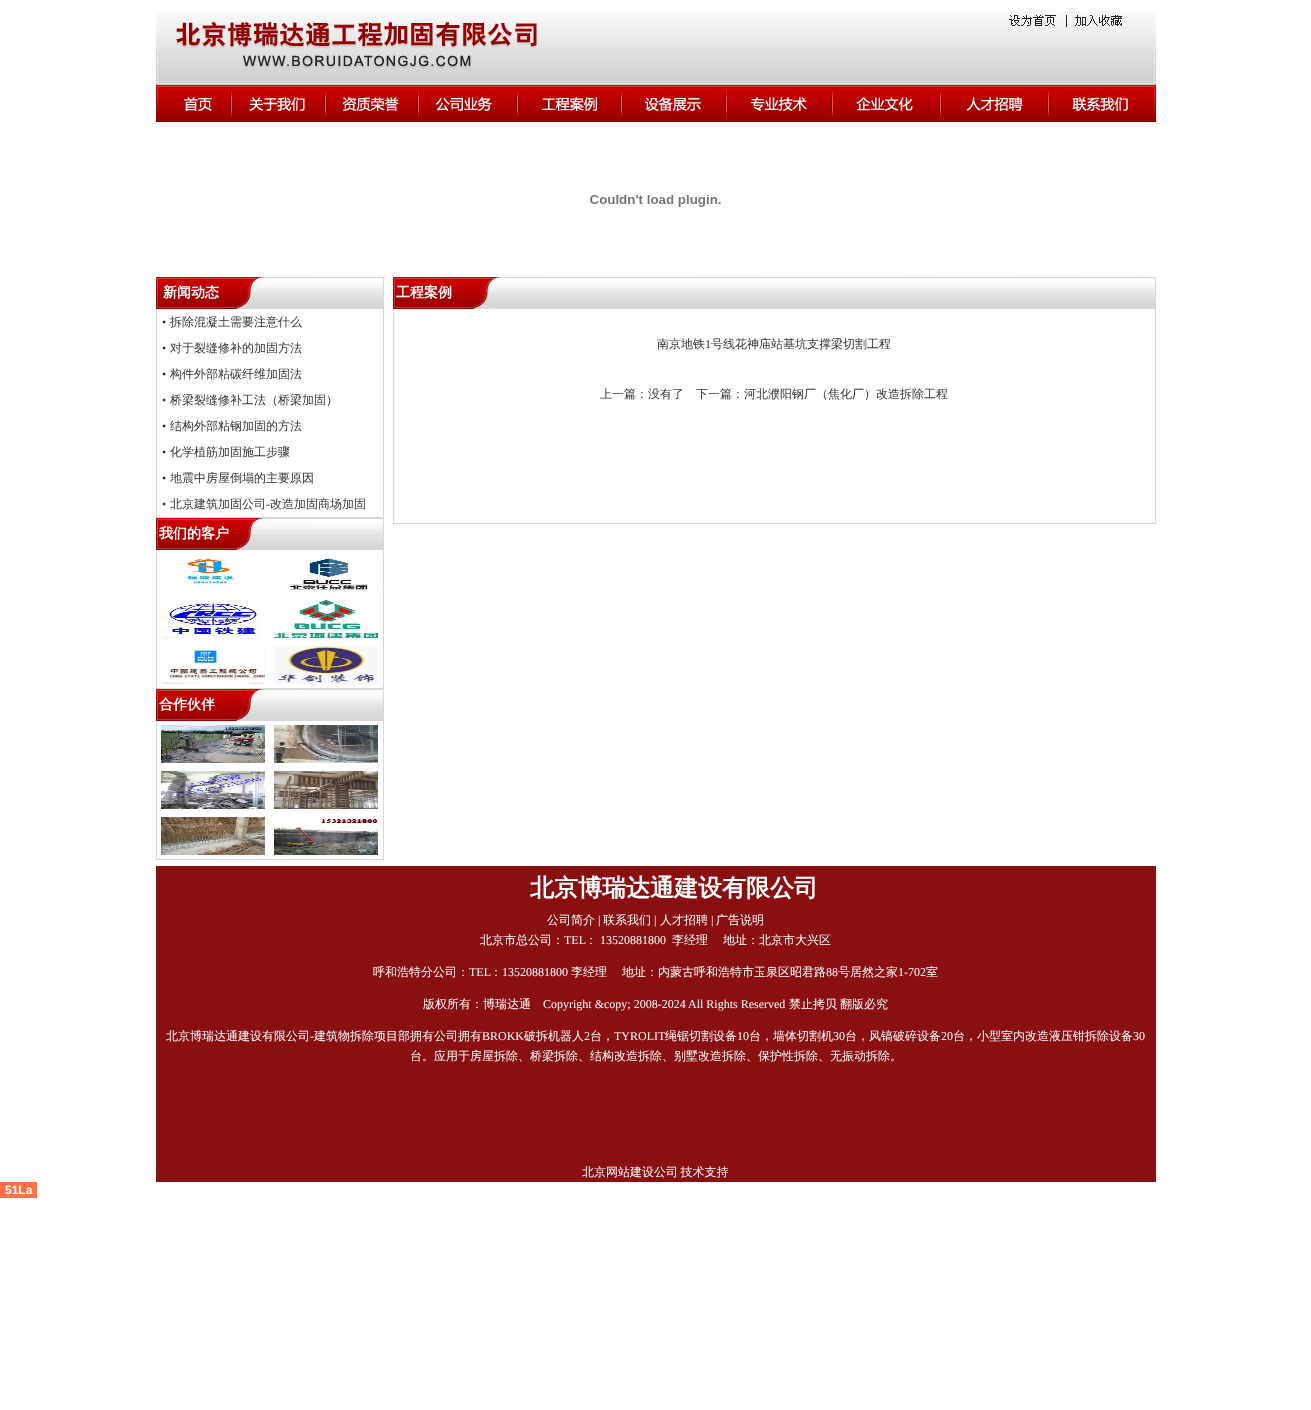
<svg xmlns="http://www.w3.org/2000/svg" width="1311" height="1410">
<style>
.a{font:bold 14px WenQuanYi Zen Hei;fill:#fff}
.b{font:12px Liberation Serif;fill:#333}
.c{font:500 12px WenQuanYi Zen Hei;fill:#333}
.d{font:bold 24px WenQuanYi Zen Hei;fill:#fff}
.e{font:500 12px WenQuanYi Zen Hei;fill:#fff}
.f{font:12px Liberation Serif;fill:#fff}
.g{font:bold 12px Liberation Sans;fill:#fff}
</style>
<rect width="100%" height="100%" fill="#fff"/>
<image href="1.png" x="156" y="10" width="1000" height="75"/>
<image href="2.png" x="156" y="85" width="1000" height="37"/>
<image href="3.png" x="590" y="195" width="131" height="12"/>
<image href="4.png" x="156" y="277" width="228" height="32"/>
<path fill="#d8d8d8" d="M383 309h1v209H383z"/>
<path fill="#d8d8d8" d="M156 517h228v1H156z"/>
<path fill="#d8d8d8" d="M156 309h1v209H156z"/>
<image href="4.png" x="156" y="518" width="228" height="32"/>
<path fill="#d8d8d8" d="M383 550h1v139H383z"/>
<path fill="#d8d8d8" d="M156 688h228v1H156z"/>
<path fill="#d8d8d8" d="M156 550h1v139H156z"/>
<image href="5.png" x="182" y="558" width="55" height="29"/>
<image href="6.png" x="289" y="558" width="89" height="33"/>
<image href="7.png" x="161" y="603" width="98" height="35"/>
<image href="8.png" x="274" y="600" width="104" height="38"/>
<image href="9.png" x="161" y="646" width="104" height="38"/>
<image href="10.png" x="274" y="646" width="104" height="38"/>
<image href="4.png" x="156" y="689" width="228" height="32"/>
<path fill="#d8d8d8" d="M383 721h1v139H383z"/>
<path fill="#d8d8d8" d="M156 859h228v1H156z"/>
<path fill="#d8d8d8" d="M156 721h1v139H156z"/>
<image href="11.png" x="161" y="725" width="104" height="38"/>
<image href="12.png" x="274" y="725" width="104" height="38"/>
<image href="13.png" x="161" y="771" width="104" height="38"/>
<image href="14.png" x="274" y="771" width="104" height="38"/>
<image href="15.png" x="161" y="817" width="104" height="38"/>
<image href="16.png" x="274" y="819" width="104" height="36"/>
<image href="17.png" x="393" y="277" width="763" height="32"/>
<path fill="#d8d8d8" d="M1155 309h1v215H1155z"/>
<path fill="#d8d8d8" d="M393 523h763v1H393z"/>
<path fill="#d8d8d8" d="M393 309h1v215H393z"/>
<path fill="#8a0f11" d="M156 866h1000v316H156z"/>
<path fill="#ff7043" d="M0 1182h37v16H0z"/>
<text class="a" x="163" y="297">新闻动态</text>
<text class="b" x="162" y="326">•</text>
<text class="c" x="170" y="326">拆除混凝土需要注意什么</text>
<text class="b" x="162" y="352">•</text>
<text class="c" x="170" y="352">对于裂缝修补的加固方法</text>
<text class="b" x="162" y="378">•</text>
<text class="c" x="170" y="378">构件外部粘碳纤维加固法</text>
<text class="b" x="162" y="404">•</text>
<text class="c" x="170" y="404">桥梁裂缝修补工法（桥梁加固）</text>
<text class="b" x="162" y="430">•</text>
<text class="c" x="170" y="430">结构外部粘钢加固的方法</text>
<text class="b" x="162" y="456">•</text>
<text class="c" x="170" y="456">化学植筋加固施工步骤</text>
<text class="b" x="162" y="482">•</text>
<text class="c" x="170" y="482">地震中房屋倒塌的主要原因</text>
<text class="b" x="162" y="508">•</text>
<text class="c" x="170" y="508">北京建筑加固公司</text>
<text class="b" x="266" y="508">-</text>
<text class="c" x="270" y="508">改造加固商场加固</text>
<text class="a" x="159" y="538">我们的客户</text>
<text class="a" x="159" y="709">合作伙伴</text>
<text class="a" x="396" y="297">工程案例</text>
<text class="c" x="657" y="348">南京地铁</text>
<text class="b" x="705" y="348">1</text>
<text class="c" x="711" y="348">号线花神庙站基坑支撑梁切割工程</text>
<text class="c" x="600" y="398">上一篇：没有了</text>
<text class="c" x="696" y="398">下一篇：河北濮阳钢厂（焦化厂）改造拆除工程</text>
<text class="d" x="530" y="896">北京博瑞达通建设有限公司</text>
<text class="e" x="547" y="924">公司简介</text>
<text class="f" x="598" y="924">|</text>
<text class="e" x="603" y="924">联系我们</text>
<text class="f" x="654" y="924">|</text>
<text class="e" x="660" y="924">人才招聘</text>
<text class="f" x="711" y="924">|</text>
<text class="e" x="716" y="924">广告说明</text>
<text class="e" x="480" y="944">北京市总公司：</text>
<text class="f" x="564" y="944">TEL</text>
<text class="e" x="585" y="944">：</text>
<text class="f" x="600" y="944">13520881800</text>
<text class="e" x="672" y="944">李经理</text>
<text class="e" x="723" y="944">地址：北京市大兴区</text>
<text class="e" x="373" y="976">呼和浩特分公司：</text>
<text class="f" x="469" y="976">TEL</text>
<text class="e" x="490" y="976">：</text>
<text class="f" x="502" y="976">13520881800</text>
<text class="e" x="571" y="976">李经理</text>
<text class="e" x="622" y="976">地址：内蒙古呼和浩特市玉泉区昭君路</text>
<text class="f" x="826" y="976">88</text>
<text class="e" x="838" y="976">号居然之家</text>
<text class="f" x="898" y="976">1-702</text>
<text class="e" x="926" y="976">室</text>
<text class="e" x="423" y="1008">版权所有：博瑞达通</text>
<text class="f" x="543" y="1008">Copyright &amp;copy; 2008-2024 All Rights Reserved</text>
<text class="e" x="789" y="1008">禁止拷贝</text>
<text class="e" x="840" y="1008">翻版必究</text>
<text class="e" x="166" y="1040">北京博瑞达通建设有限公司</text>
<text class="f" x="310" y="1040">-</text>
<text class="e" x="314" y="1040">建筑物拆除项目部拥有公司拥有</text>
<text class="f" x="482" y="1040">BROKK</text>
<text class="e" x="524" y="1040">破拆机器人</text>
<text class="f" x="584" y="1040">2</text>
<text class="e" x="590" y="1040">台，</text>
<text class="f" x="614" y="1040">TYROLIT</text>
<text class="e" x="665" y="1040">绳锯切割设备</text>
<text class="f" x="737" y="1040">10</text>
<text class="e" x="749" y="1040">台，墙体切割机</text>
<text class="f" x="833" y="1040">30</text>
<text class="e" x="845" y="1040">台，风镐破碎设备</text>
<text class="f" x="941" y="1040">20</text>
<text class="e" x="953" y="1040">台，小型室内改造液压钳拆除设备</text>
<text class="f" x="1133" y="1040">30</text>
<text class="e" x="410" y="1060">台。应用于房屋拆除、桥梁拆除、结构改造拆除、别墅改造拆除、保护性拆除、无振动拆除。</text>
<text class="e" x="582" y="1176" word-spacing="-1">北京网站建设公司 技术支持</text>
<text class="g" x="5" y="1194">51La</text>
</svg>
